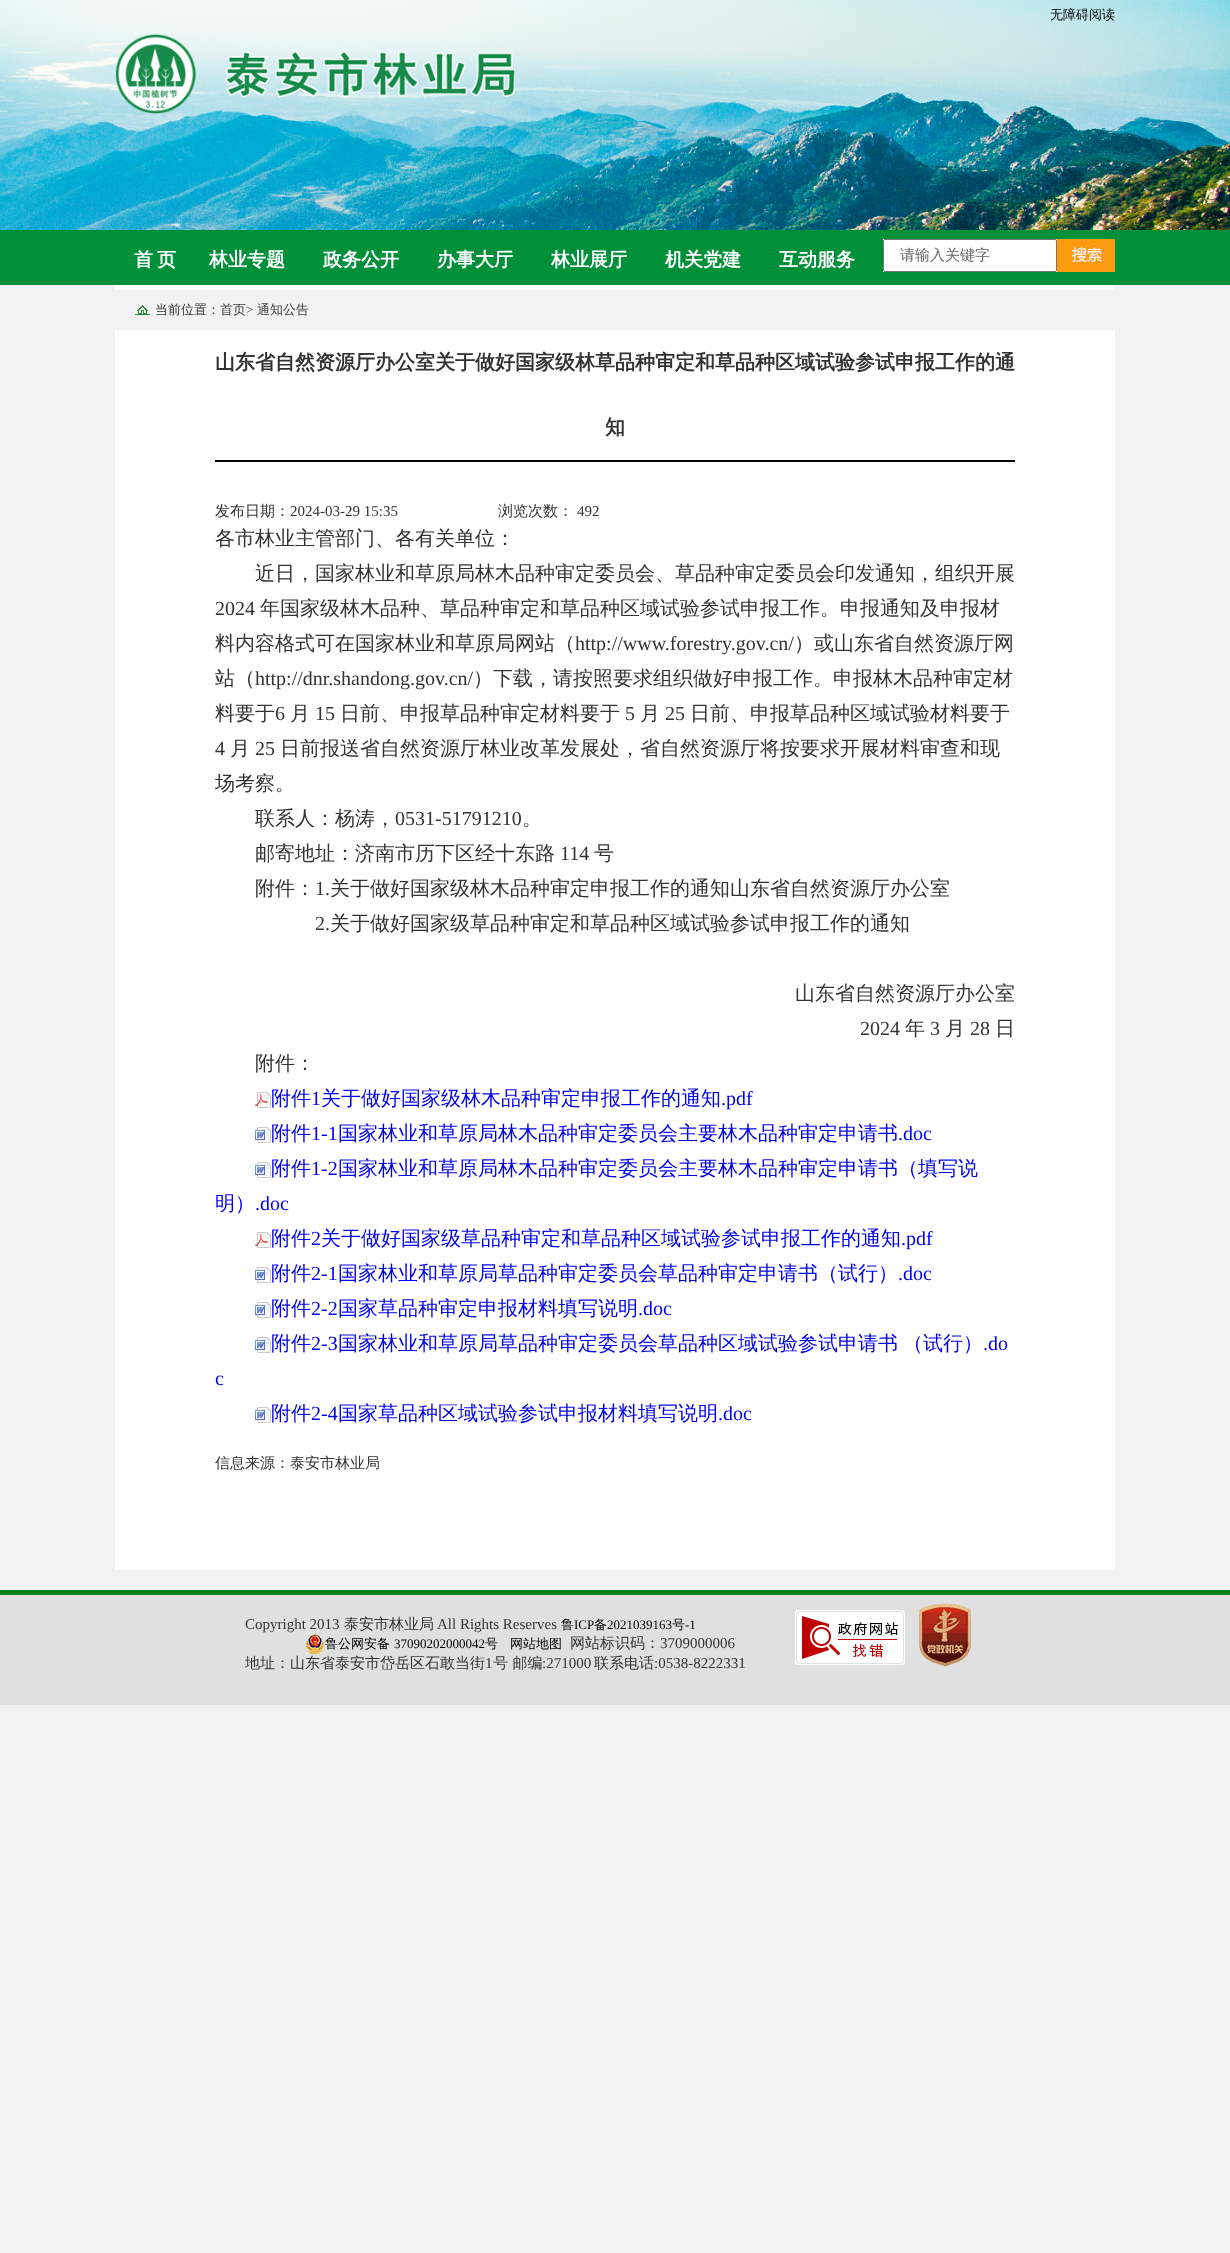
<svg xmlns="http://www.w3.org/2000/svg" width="1230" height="2253">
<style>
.a{font:500 13px WenQuanYi Zen Hei;fill:#000}
.b{font:bold 19px WenQuanYi Zen Hei;fill:#fff}
.c{font:500 15px WenQuanYi Zen Hei;fill:#666}
.d{font:500 13px WenQuanYi Zen Hei;fill:#333}
.e{font:500 13px WenQuanYi Zen Hei;fill:#3d3d3d}
.f{font:13px Liberation Serif;fill:#333}
.g{font:bold 20px WenQuanYi Zen Hei;fill:#333}
.h{font:500 15px WenQuanYi Zen Hei;fill:#333}
.i{font:15px Liberation Serif;fill:#333}
.j{font:500 20px WenQuanYi Zen Hei;fill:#333}
.k{font:20px Liberation Serif;fill:#333}
.l{font:500 20px WenQuanYi Zen Hei;fill:#00e}
.m{font:20px Liberation Serif;fill:#00e}
.n{font:13px Liberation Serif;fill:#000}
</style>
<rect width="100%" height="100%" fill="#f2f2f2"/>
<image href="1.png" x="0" y="0" width="1230" height="230"/>
<image href="2.png" x="115" y="34" width="400" height="80"/>
<path fill="#00903a" d="M0 230h1230v55H0z"/>
<path fill="#fff" d="M883 239h174v33H883z"/>
<rect fill="none" stroke="#767676" x="883.5" y="239.5" width="173" height="32" rx="1.5"/>
<image href="3.png" x="1057" y="239" width="58" height="33"/>
<path fill="#fff" d="M115 285h1000v1285H115z"/>
<path fill="#f2f2f2" d="M115 290h1000v40H115z"/>
<image href="4.png" x="135" y="305" width="15" height="10"/>
<path fill="#000" d="M215 460h800v2H215z"/>
<image href="5.png" x="255" y="1092" width="16" height="16"/>
<image href="6.png" x="255" y="1127" width="16" height="16"/>
<image href="6.png" x="255" y="1162" width="16" height="16"/>
<image href="5.png" x="255" y="1232" width="16" height="16"/>
<image href="6.png" x="255" y="1267" width="16" height="16"/>
<image href="6.png" x="255" y="1302" width="16" height="16"/>
<image href="6.png" x="255" y="1337" width="16" height="16"/>
<image href="6.png" x="255" y="1407" width="16" height="16"/>
<path fill="#e0e0e0" d="M0 1595h1230v110H0z"/>
<path fill="#048116" d="M0 1590h1230v5H0z"/>
<image href="7.png" x="306" y="1634" width="18" height="20"/>
<image href="8.png" x="795" y="1610" width="110" height="55"/>
<image href="9.png" x="919" y="1603" width="52" height="64"/>
<text class="a" x="1050" y="19">无障碍阅读</text>
<text class="b" x="134" y="266">首</text>
<text class="b" x="157" y="266">页</text>
<text class="b" x="209" y="266">林业专题</text>
<text class="b" x="323" y="266">政务公开</text>
<text class="b" x="437" y="266">办事大厅</text>
<text class="b" x="551" y="266">林业展厅</text>
<text class="b" x="665" y="266">机关党建</text>
<text class="b" x="779" y="266">互动服务</text>
<text class="c" x="900" y="260">请输入关键字</text>
<text class="d" x="155" y="314">当前位置：</text>
<text class="e" x="220" y="314">首页</text>
<text class="f" x="246" y="314">&gt;</text>
<text class="e" x="257" y="314">通知公告</text>
<text class="g" x="215" y="369">山东省自然资源厅办公室关于做好国家级林草品种审定和草品种区域试验参试申报工作的通</text>
<text class="g" x="605" y="434">知</text>
<text class="h" x="215" y="516">发布日期：</text>
<text class="i" x="290" y="516">2024-03-29 15:35</text>
<text class="h" x="498" y="516">浏览次数：</text>
<text class="i" x="577" y="516">492</text>
<text class="j" x="215" y="545">各市林业主管部门、各有关单位：</text>
<text class="j" x="255" y="580">近日，国家林业和草原局林木品种审定委员会、草品种审定委员会印发通知，组织开展</text>
<text class="k" x="215" y="615">2024</text>
<text class="j" x="260" y="615">年国家级林木品种、草品种审定和草品种区域试验参试申报工作。申报通知及申报材</text>
<text class="j" x="215" y="650">料内容格式可在国家林业和草原局网站（</text>
<text class="k" x="575" y="650">http://www.forestry.gov.cn/</text>
<text class="j" x="794" y="650">）或山东省自然资源厅网</text>
<text class="j" x="215" y="685">站（</text>
<text class="k" x="255" y="685">http://dnr.shandong.gov.cn/</text>
<text class="j" x="473" y="685">）下载，请按照要求组织做好申报工作。申报林木品种审定材</text>
<text class="j" x="215" y="720">料要于</text>
<text class="k" x="275" y="720">6</text>
<text class="j" x="290" y="720">月</text>
<text class="k" x="315" y="720">15</text>
<text class="j" x="340" y="720">日前、申报草品种审定材料要于</text>
<text class="k" x="625" y="720">5</text>
<text class="j" x="640" y="720">月</text>
<text class="k" x="665" y="720">25</text>
<text class="j" x="690" y="720">日前、申报草品种区域试验材料要于</text>
<text class="k" x="215" y="755">4</text>
<text class="j" x="230" y="755">月</text>
<text class="k" x="255" y="755">25</text>
<text class="j" x="280" y="755">日前报送省自然资源厅林业改革发展处，省自然资源厅将按要求开展材料审查和现</text>
<text class="j" x="215" y="790">场考察。</text>
<text class="j" x="255" y="825">联系人：杨涛，</text>
<text class="k" x="395" y="825">0531-51791210</text>
<text class="j" x="522" y="825">。</text>
<text class="j" x="255" y="860">邮寄地址：济南市历下区经十东路</text>
<text class="k" x="560" y="860">114</text>
<text class="j" x="594" y="860">号</text>
<text class="j" x="255" y="895">附件：</text>
<text class="k" x="315" y="895">1.</text>
<text class="j" x="330" y="895">关于做好国家级林木品种审定申报工作的通知山东省自然资源厅办公室</text>
<text class="k" x="315" y="930">2.</text>
<text class="j" x="330" y="930">关于做好国家级草品种审定和草品种区域试验参试申报工作的通知</text>
<text class="j" x="795" y="1000">山东省自然资源厅办公室</text>
<text class="k" x="860" y="1035">2024</text>
<text class="j" x="905" y="1035">年</text>
<text class="k" x="930" y="1035">3</text>
<text class="j" x="945" y="1035">月</text>
<text class="k" x="970" y="1035">28</text>
<text class="j" x="995" y="1035">日</text>
<text class="j" x="255" y="1070">附件：</text>
<text class="l" x="271" y="1105">附件</text>
<text class="m" x="311" y="1105">1</text>
<text class="l" x="321" y="1105">关于做好国家级林木品种审定申报工作的通知</text>
<text class="m" x="721" y="1105">.pdf</text>
<text class="l" x="271" y="1140">附件</text>
<text class="m" x="311" y="1140">1-1</text>
<text class="l" x="338" y="1140">国家林业和草原局林木品种审定委员会主要林木品种审定申请书</text>
<text class="m" x="898" y="1140">.doc</text>
<text class="l" x="271" y="1175">附件</text>
<text class="m" x="311" y="1175">1-2</text>
<text class="l" x="338" y="1175">国家林业和草原局林木品种审定委员会主要林木品种审定申请书（填写说</text>
<text class="l" x="215" y="1210">明）</text>
<text class="m" x="255" y="1210">.doc</text>
<text class="l" x="271" y="1245">附件</text>
<text class="m" x="311" y="1245">2</text>
<text class="l" x="321" y="1245">关于做好国家级草品种审定和草品种区域试验参试申报工作的通知</text>
<text class="m" x="901" y="1245">.pdf</text>
<text class="l" x="271" y="1280">附件</text>
<text class="m" x="311" y="1280">2-1</text>
<text class="l" x="338" y="1280">国家林业和草原局草品种审定委员会草品种审定申请书（试行）</text>
<text class="m" x="898" y="1280">.doc</text>
<text class="l" x="271" y="1315">附件</text>
<text class="m" x="311" y="1315">2-2</text>
<text class="l" x="338" y="1315">国家草品种审定申报材料填写说明</text>
<text class="m" x="638" y="1315">.doc</text>
<text class="l" x="271" y="1350">附件</text>
<text class="m" x="311" y="1350">2-3</text>
<text class="l" x="338" y="1350" word-spacing="-1">国家林业和草原局草品种审定委员会草品种区域试验参试申请书 （试行）</text>
<text class="m" x="983" y="1350">.do</text>
<text class="m" x="215" y="1385">c</text>
<text class="l" x="271" y="1420">附件</text>
<text class="m" x="311" y="1420">2-4</text>
<text class="l" x="338" y="1420">国家草品种区域试验参试申报材料填写说明</text>
<text class="m" x="718" y="1420">.doc</text>
<text class="h" x="215" y="1468">信息来源：泰安市林业局</text>
<text class="i" x="245" y="1629">Copyright 2013</text>
<text class="h" x="344" y="1629">泰安市林业局</text>
<text class="i" x="437" y="1629">All Rights Reserves</text>
<text class="a" x="561" y="1629">鲁</text>
<text class="n" x="574" y="1629">ICP</text>
<text class="a" x="594" y="1629">备</text>
<text class="n" x="607" y="1629">2021039163</text>
<text class="a" x="672" y="1629">号</text>
<text class="n" x="685" y="1629">-1</text>
<text class="a" x="325" y="1648">鲁公网安备</text>
<text class="n" x="394" y="1648">37090202000042</text>
<text class="a" x="485" y="1648">号</text>
<text class="a" x="510" y="1648">网站地图</text>
<text class="h" x="570" y="1648">网站标识码：</text>
<text class="i" x="660" y="1648">3709000006</text>
<text class="h" x="245" y="1668">地址：山东省泰安市岱岳区石敢当街</text>
<text class="i" x="485" y="1668">1</text>
<text class="h" x="493" y="1668">号 邮编</text>
<text class="i" x="542" y="1668">:271000</text>
<text class="h" x="594" y="1668">联系电话</text>
<text class="i" x="654" y="1668">:0538-8222331</text>
</svg>
